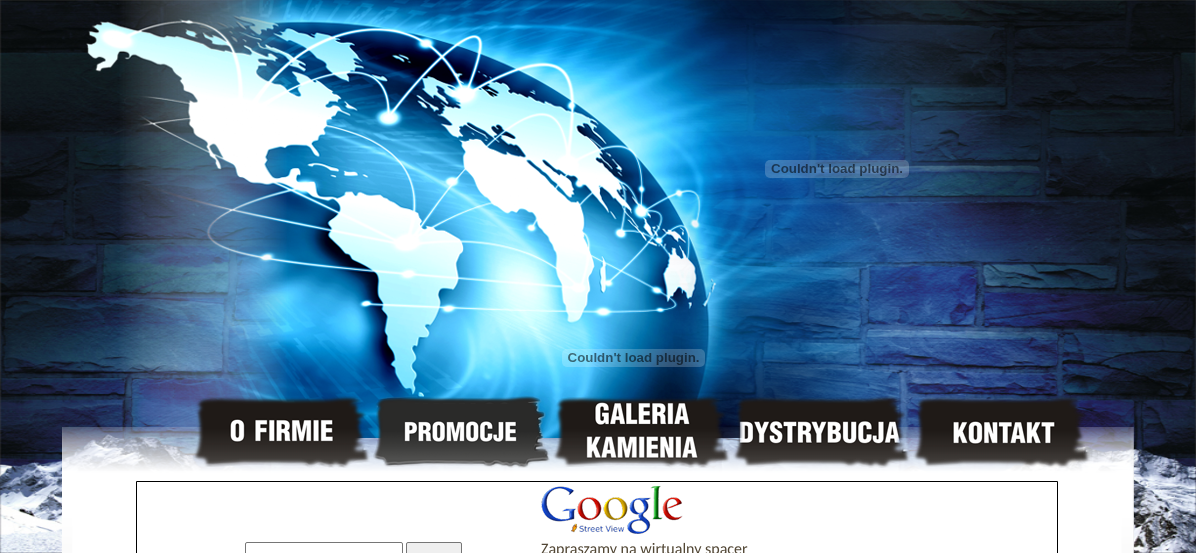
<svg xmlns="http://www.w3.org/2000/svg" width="1196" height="553">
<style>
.a{font:16px Carlito;fill:#524735}
</style>
<rect width="100%" height="100%" fill="#fff"/>
<image href="1.png" x="0" y="0" width="1196" height="553"/>
<image href="10.png" x="62" y="427" width="1072" height="126"/>
<image href="2.png" x="86" y="0" width="914" height="438"/>
<image href="3.png" x="765" y="160" width="144" height="18"/>
<image href="4.png" x="562" y="349" width="143" height="18"/>
<image href="5.png" x="193" y="396" width="177" height="72"/>
<image href="6.png" x="373" y="395" width="177" height="73"/>
<image href="7.png" x="553" y="396" width="177" height="72"/>
<image href="8.png" x="733" y="396" width="177" height="72"/>
<image href="9.png" x="913" y="396" width="177" height="72"/>
<path fill="none" stroke="#000" d="M136.5 481.5h921v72H136.5z"/>
<rect fill="none" stroke="#767676" x="245.5" y="542.5" width="157" height="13" rx="1.5"/>
<path fill="#efefef" d="M408 542h52c1 0 2 1 2 2v9h-56v-9c0-1 1-2 2-2z"/>
<rect fill="none" stroke="#767676" x="406.5" y="542.5" width="55" height="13" rx="1.5"/>
<image href="11.png" x="541" y="485" width="142" height="49"/>
<text class="a" x="541" y="554">Zapraszamy na wirtualny spacer</text>
</svg>
